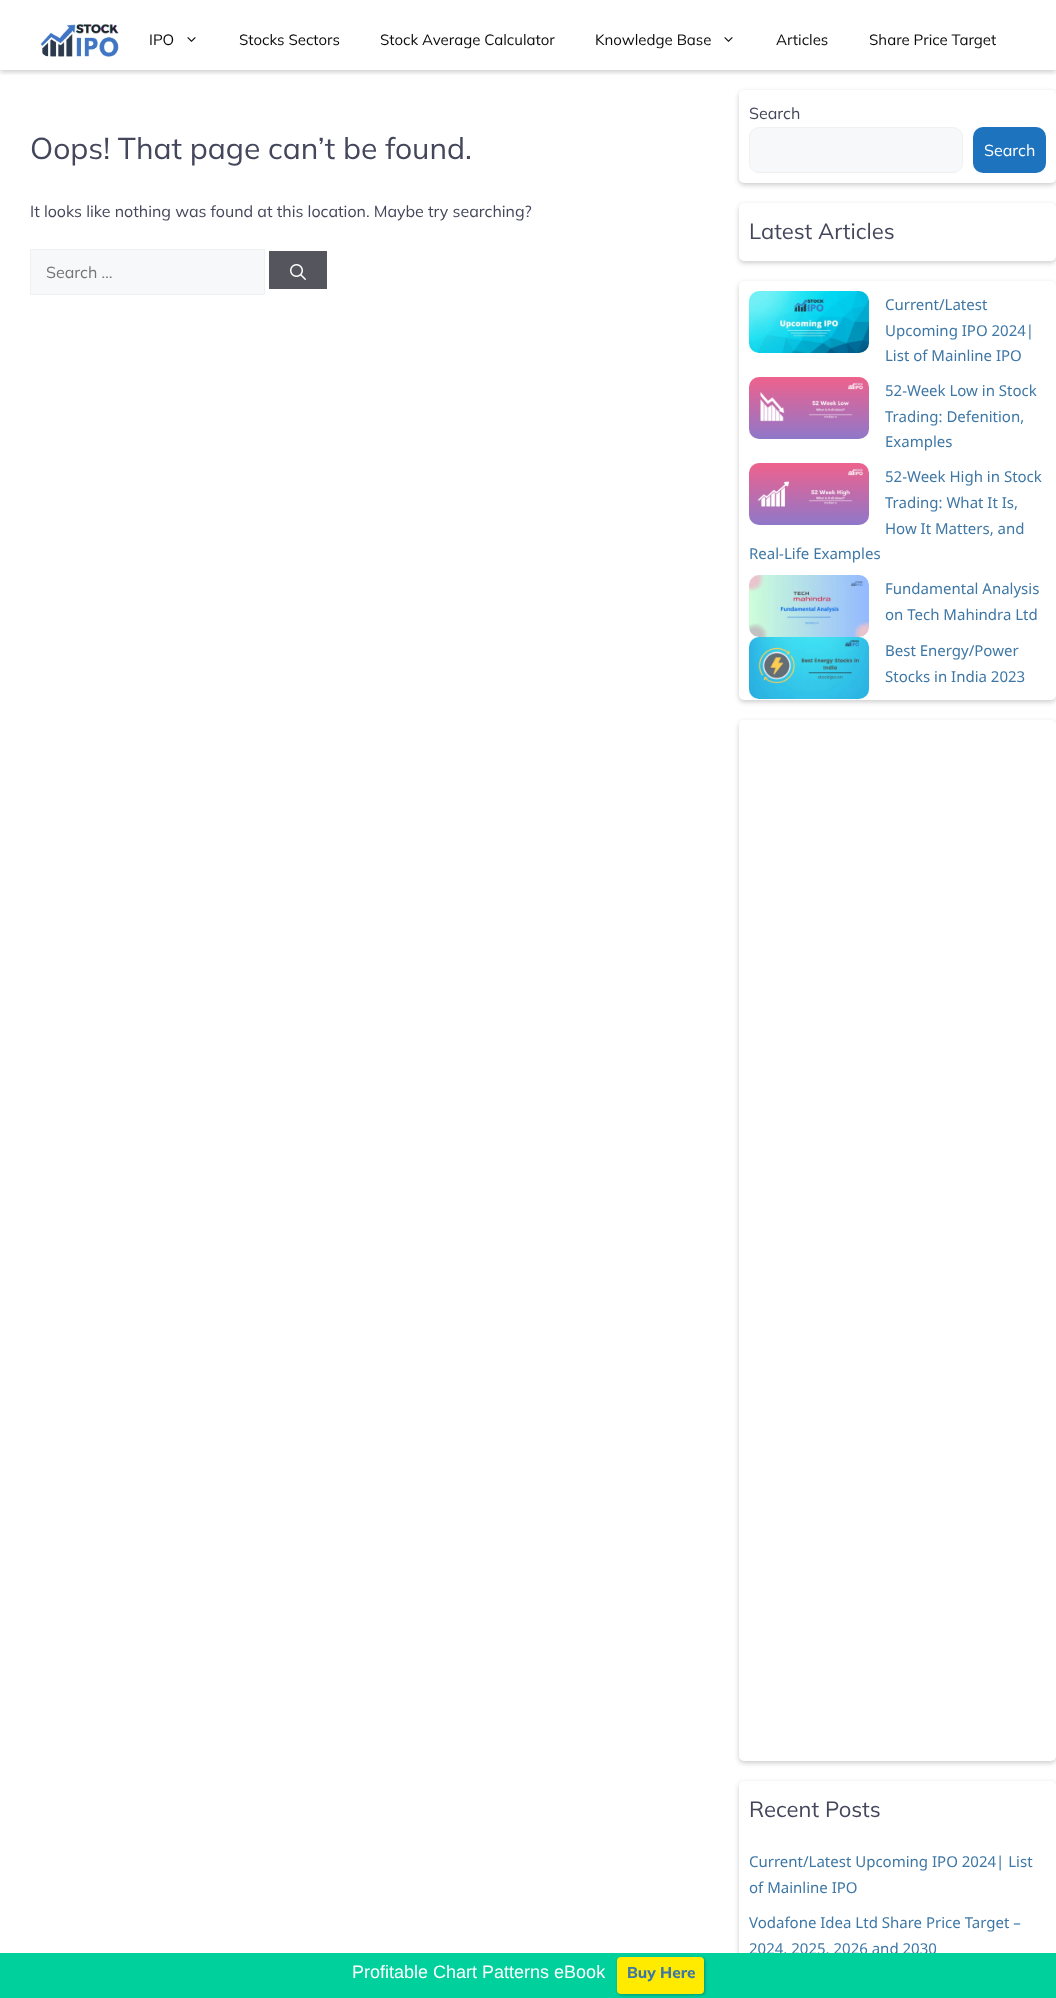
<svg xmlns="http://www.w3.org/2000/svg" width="1056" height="1998">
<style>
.a{font:15px Mulish;fill:#0a0a0a}
.b{font:30px Mulish;fill:#44475b}
.c{font:16px Mulish;fill:#44475b}
.d{font:16px Mulish;fill:#757575}
.e{font:16px Mulish;fill:#fff}
.f{font:22px Mulish;fill:#44475b}
.g{font:15px Noto Sans;fill:#3e77a5}
.h{font:18px Liberation Sans;fill:#fff}
.i{font:800 15.5px Mulish;fill:#3e77a5}
</style>
<defs>
<clipPath id="clip1"><path d="M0 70h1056v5H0z"/></clipPath>
</defs>
<rect width="100%" height="100%" fill="#fff"/>
<g clip-path="url(#clip1)">
<path fill="#00000033" filter="blur(2.5px)" d="M0 2h1056v70H0z"/>
</g>
<image href="1.png" x="40" y="23" width="79" height="34"/>
<image href="2.png" x="187" y="37" width="9" height="5"/>
<image href="2.png" x="724" y="37" width="9" height="5"/>
<path fill="#f7f8f9" stroke="#f0f0f0" d="M30.5 249.5h234v45H30.5z"/>
<path fill="#55555e" d="M269 251h58v38H269z"/>
<image href="3.png" x="290" y="264" width="16" height="16"/>
<rect fill="#00000033" filter="blur(2.5px)" x="739" y="92" width="317" height="93" rx="5"/>
<rect fill="#fff" x="739" y="90" width="317" height="93" rx="5"/>
<rect fill="#f7f8f9" stroke="#f0f0f0" x="749.5" y="127.5" width="213" height="45" rx="9.5"/>
<rect fill="#1e73be" x="973" y="127" width="73" height="46" rx="10"/>
<rect fill="#00000033" filter="blur(2.5px)" x="739" y="205" width="317" height="58" rx="5"/>
<rect fill="#fff" x="739" y="203" width="317" height="58" rx="5"/>
<rect fill="#00000033" filter="blur(2.5px)" x="739" y="283" width="317" height="419" rx="5"/>
<rect fill="#fff" x="739" y="281" width="317" height="419" rx="5"/>
<image href="4.png" x="749" y="291" width="120" height="62"/>
<image href="5.png" x="749" y="377" width="120" height="62"/>
<image href="6.png" x="749" y="463" width="120" height="62"/>
<image href="7.png" x="749" y="575" width="120" height="62"/>
<image href="8.png" x="749" y="637" width="120" height="62"/>
<rect fill="#00000033" filter="blur(2.5px)" x="739" y="722" width="317" height="1041" rx="5"/>
<rect fill="#fff" x="739" y="720" width="317" height="1041" rx="5"/>
<rect fill="#00000033" filter="blur(2.5px)" x="739" y="1783" width="317" height="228" rx="5"/>
<rect fill="#fff" x="739" y="1781" width="317" height="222" rx="5"/>
<text class="a" x="149" y="45">IPO</text>
<text class="a" x="239" y="45">Stocks Sectors</text>
<text class="a" x="380" y="45">Stock Average Calculator</text>
<text class="a" x="595" y="45">Knowledge Base</text>
<text class="a" x="776" y="45">Articles</text>
<text class="a" x="869" y="45">Share Price Target</text>
<text class="b" x="30" y="159">Oops! That page can’t be found.</text>
<text class="c" x="30" y="217">It looks like nothing was found at this location. Maybe try searching?</text>
<text class="d" x="46" y="278">Search …</text>
<text class="c" x="749" y="119">Search</text>
<text class="e" x="984" y="156">Search</text>
<text class="f" x="749" y="239">Latest Articles</text>
<text class="g" x="885" y="310">Current/Latest</text>
<text class="g" x="885" y="336">Upcoming IPO 2024|</text>
<text class="g" x="885" y="361">List of Mainline IPO</text>
<text class="g" x="885" y="396">52-Week Low in Stock</text>
<text class="g" x="885" y="422">Trading: Defenition,</text>
<text class="g" x="885" y="447">Examples</text>
<text class="g" x="885" y="482">52-Week High in Stock</text>
<text class="g" x="885" y="508">Trading: What It Is,</text>
<text class="g" x="885" y="534">How It Matters, and</text>
<text class="g" x="749" y="559">Real-Life Examples</text>
<text class="g" x="885" y="594">Fundamental Analysis</text>
<text class="g" x="885" y="620">on Tech Mahindra Ltd</text>
<text class="g" x="885" y="656">Best Energy/Power</text>
<text class="g" x="885" y="682">Stocks in India 2023</text>
<text class="f" x="749" y="1817">Recent Posts</text>
<text class="g" x="749" y="1867">Current/Latest Upcoming IPO 2024| List</text>
<text class="g" x="749" y="1893">of Mainline IPO</text>
<text class="g" x="749" y="1928">Vodafone Idea Ltd Share Price Target –</text>
<text class="g" x="749" y="1954">2024, 2025, 2026 and 2030</text>
<path fill="#00d09c" d="M0 1953h1056v45H0z"/>
<text class="h" x="352" y="1978">Profitable Chart Patterns eBook</text>
<rect fill="#00000047" filter="blur(1.5px)" x="618" y="1958" width="87" height="37" rx="4"/>
<rect fill="#ffeb00" x="617" y="1957" width="87" height="37" rx="4"/>
<text class="i" x="627" y="1978">Buy Here</text>
</svg>
